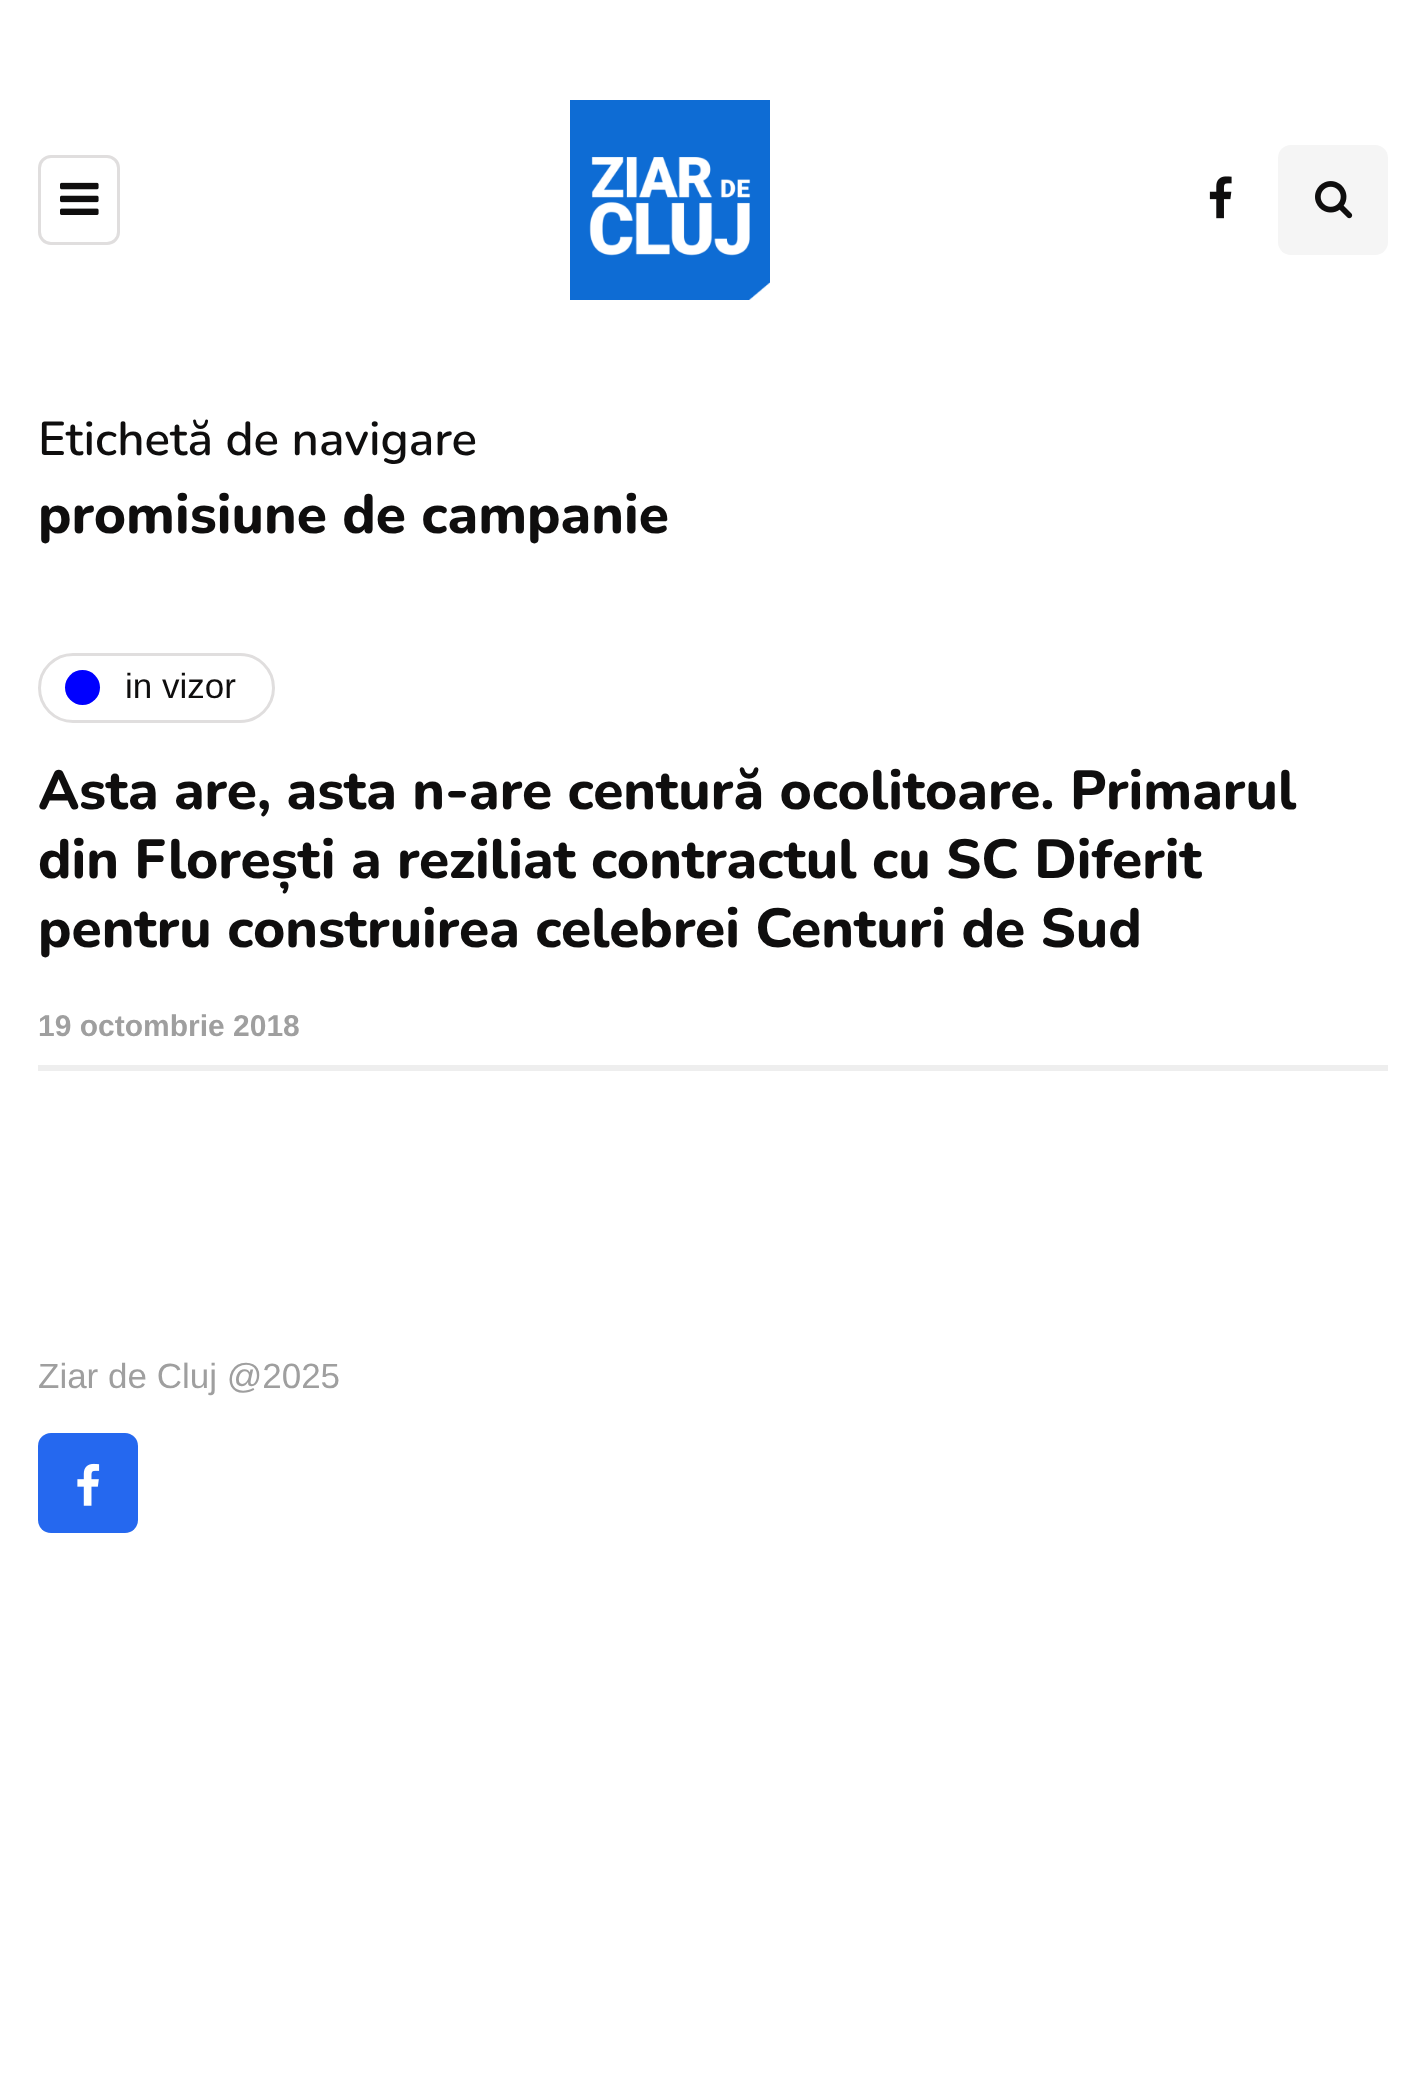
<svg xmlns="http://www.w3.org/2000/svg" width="1425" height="2075">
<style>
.a{font:600 47.5px Nunito;fill:#0f0e0e}
.b{font:800 55px Nunito;fill:#0f0e0e}
.c{font:35px Liberation Sans;fill:#0f0e0e}
.d{font:bold 30px Liberation Sans;fill:#9f9f9f}
.e{font:35px Liberation Sans;fill:#9f9f9f}
</style>
<rect width="100%" height="100%" fill="#fff"/>
<rect fill="none" stroke="#e0dede" stroke-width="3" x="39.5" y="156.5" width="79" height="87" rx="11.5"/>
<image href="1.png" x="60" y="182" width="39" height="33"/>
<image href="2.png" x="570" y="100" width="200" height="200"/>
<image href="3.png" x="1209" y="176" width="23" height="43"/>
<rect fill="#f5f5f5" x="1278" y="145" width="110" height="110" rx="13"/>
<image href="4.png" x="1315" y="181" width="38" height="38"/>
<path fill="#eee" d="M38 1065h1350v6H38z"/>
<rect fill="none" stroke="#e0dede" stroke-width="3" x="39.5" y="654.5" width="234" height="67" rx="33.5"/>
<circle fill="#00f" cx="82.5" cy="687.5" r="17.5"/>
<rect fill="#2568ef" x="38" y="1433" width="100" height="100" rx="13"/>
<image href="5.png" x="77" y="1463" width="23" height="43"/>
<text class="a" x="38" y="455">Etichetă de navigare</text>
<text class="b" x="38" y="533">promisiune de campanie</text>
<text class="c" x="125" y="698">in vizor</text>
<text class="b" x="38" y="809">Asta are, asta n-are centură ocolitoare. Primarul</text>
<text class="b" x="38" y="878">din Florești a reziliat contractul cu SC Diferit</text>
<text class="b" x="38" y="947">pentru construirea celebrei Centuri de Sud</text>
<text class="d" x="38" y="1036">19 octombrie 2018</text>
<text class="e" x="38" y="1388">Ziar de Cluj @2025</text>
</svg>
